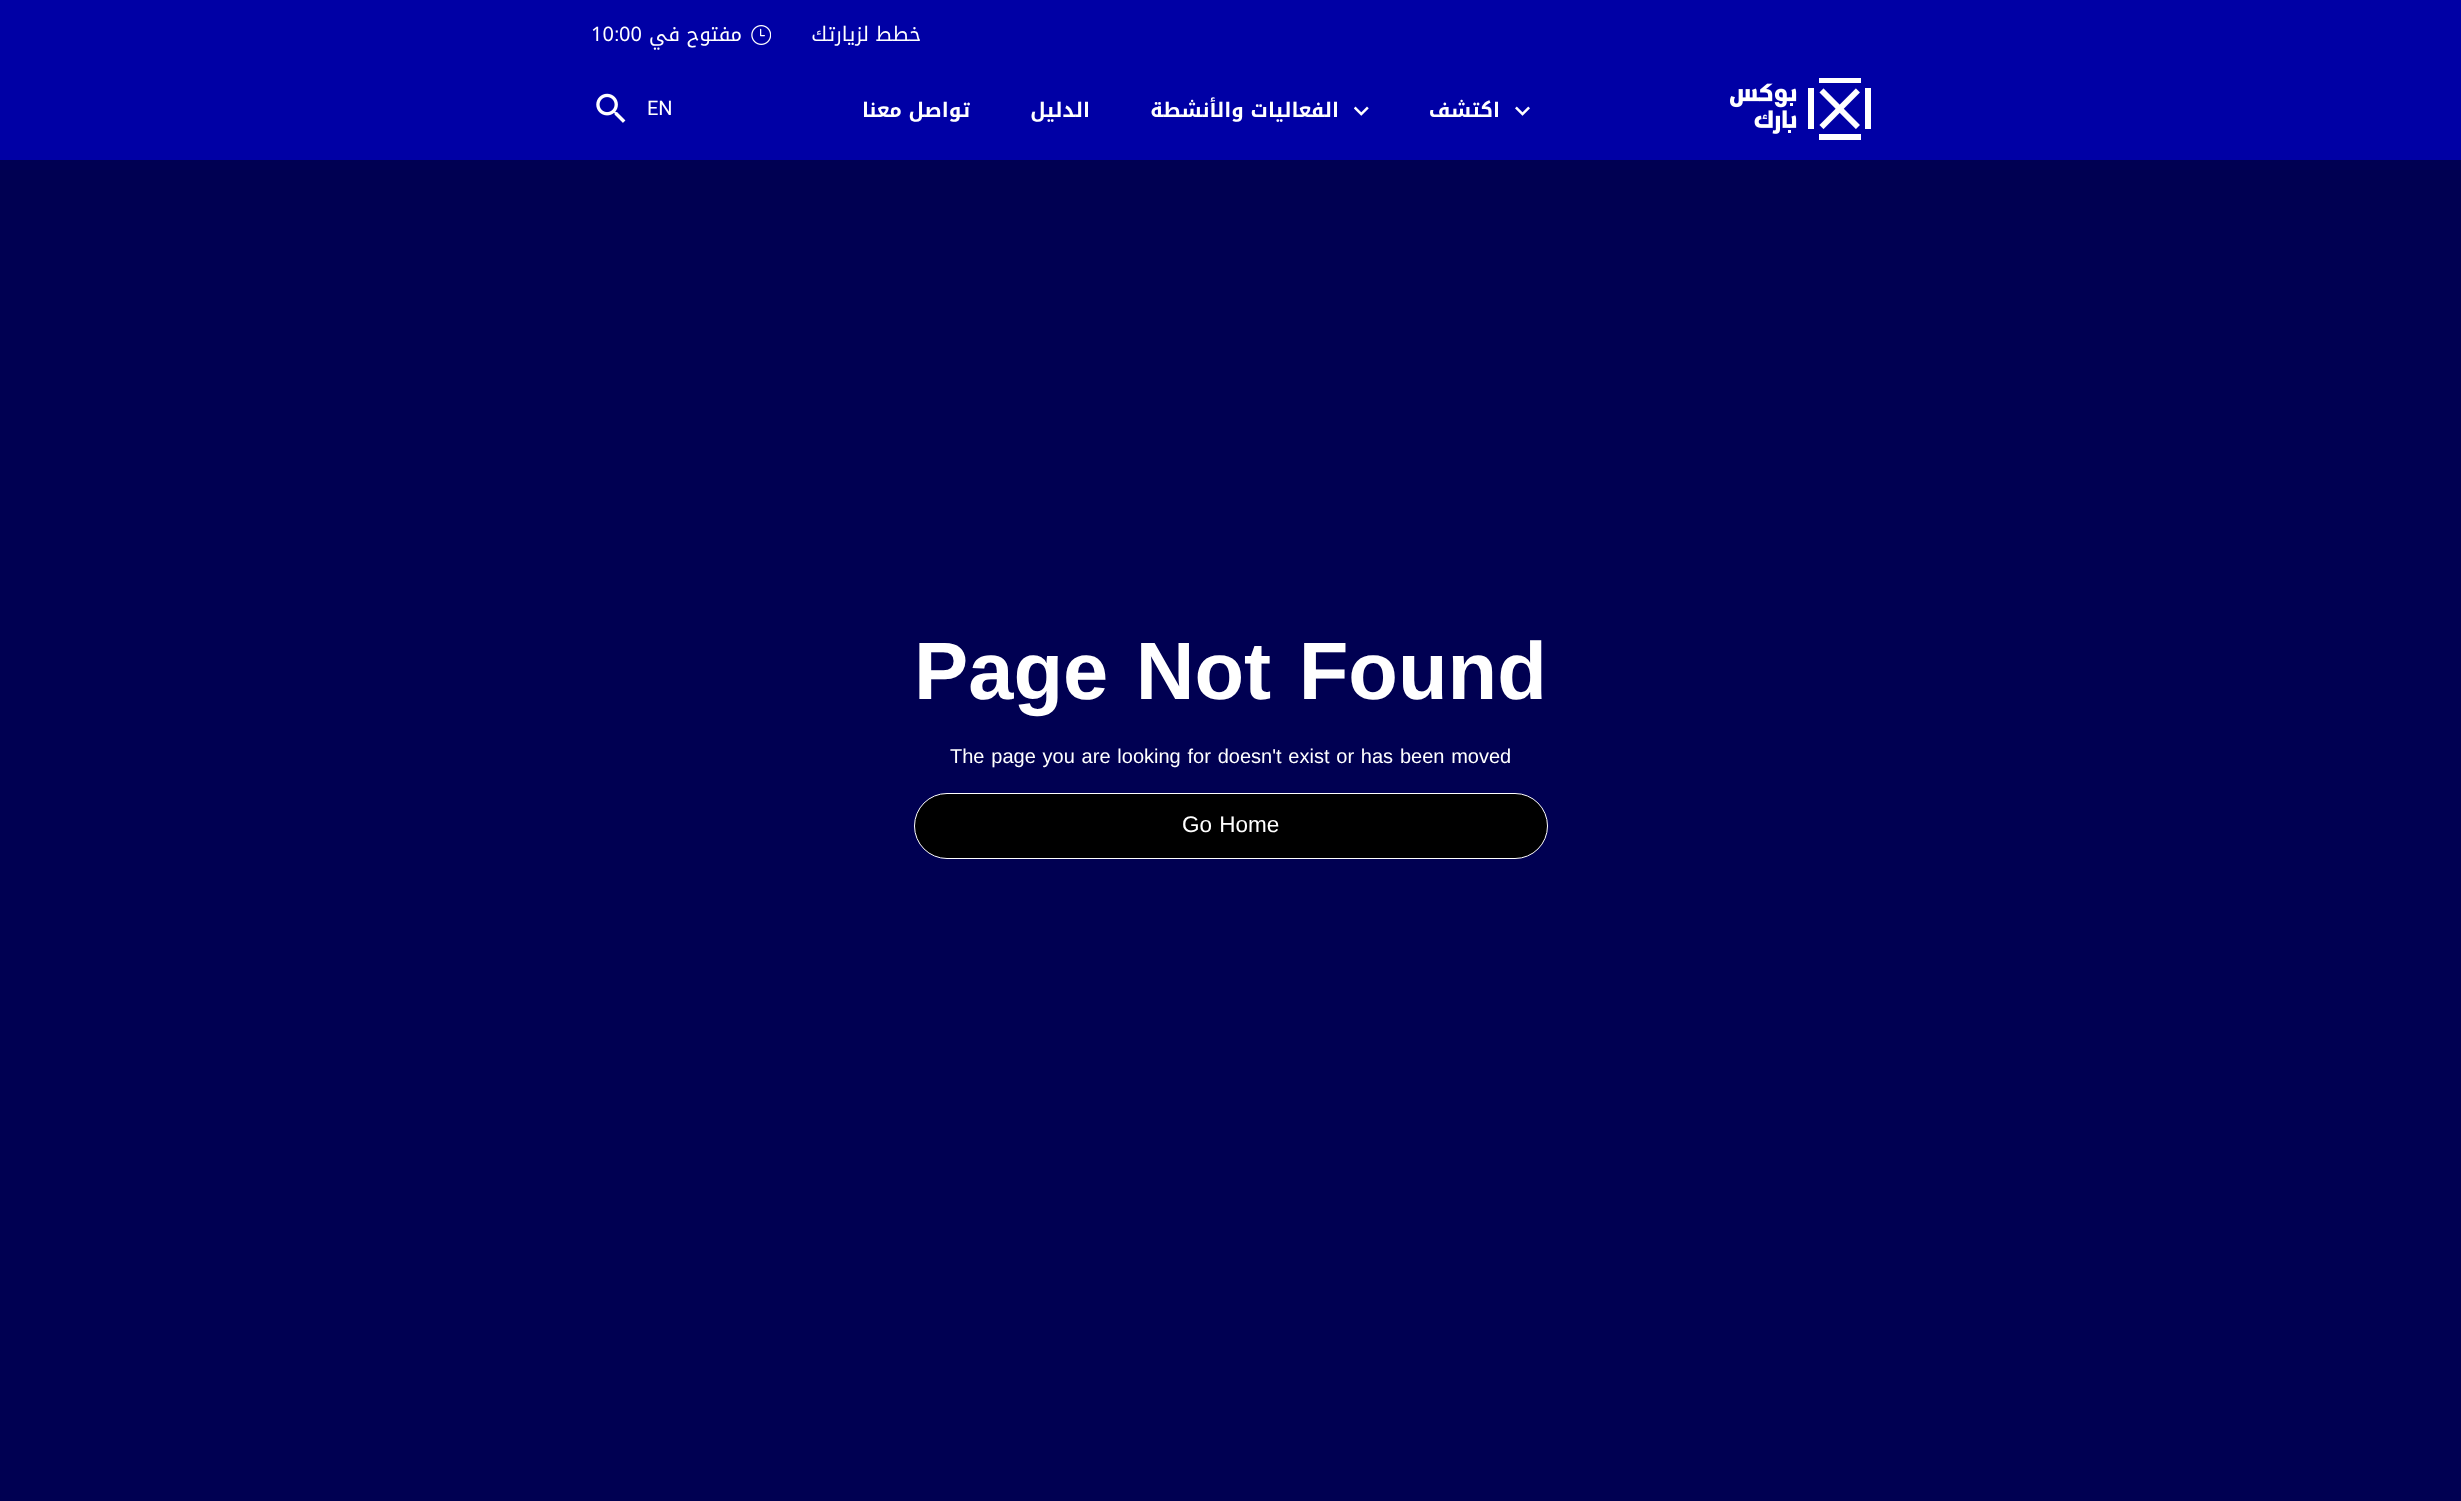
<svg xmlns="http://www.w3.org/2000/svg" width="2461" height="1501">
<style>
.a{font:20px Noto Kufi Arabic;fill:#fff}
.b{font:20px Liberation Sans;fill:#fff}
.c{font:20px Noto Kufi Arabic;direction:rtl;fill:#fff}
.d{font:20px Roboto;fill:#fff}
.e{font:bold 20px Noto Kufi Arabic;direction:rtl;fill:#fff}
.f{font:bold 81.25px Liberation Sans;fill:#fff}
.g{font:22.5px Liberation Sans;fill:#fff}
</style>
<rect width="100%" height="100%" fill="#000052"/>
<path fill="#0000a5" d="M0 0h2461v160H0z"/>
<image href="1.png" x="751" y="25" width="20" height="20"/>
<image href="2.png" x="596" y="93" width="30" height="30"/>
<image href="3.png" x="1354" y="106" width="15" height="10"/>
<image href="4.png" x="1515" y="106" width="15" height="10"/>
<image href="5.png" x="1730" y="78" width="141" height="62"/>
<rect fill="#000" stroke="#fff" x="914.5" y="793.5" width="633" height="65" rx="32.5"/>
<text class="a" x="591" y="41">10</text>
<text class="b" x="614" y="41">:</text>
<text class="a" x="619" y="41">00</text>
<text class="c" x="742" y="41">مفتوح في</text>
<text class="c" x="921" y="41">خطط لزيارتك</text>
<text class="d" x="647" y="115">EN</text>
<text class="e" x="970" y="117">تواصل معنا</text>
<text class="e" x="1090" y="117">الدليل</text>
<text class="e" x="1339" y="117">الفعاليات والأنشطة</text>
<text class="e" x="1500" y="117">اكتشف</text>
<text class="f" x="914" y="699" word-spacing="5">Page Not Found</text>
<text class="b" x="950" y="763" word-spacing="1.25">The page you are looking for doesn't exist or has been moved</text>
<text class="g" x="1182" y="832" word-spacing="1">Go Home</text>
</svg>
